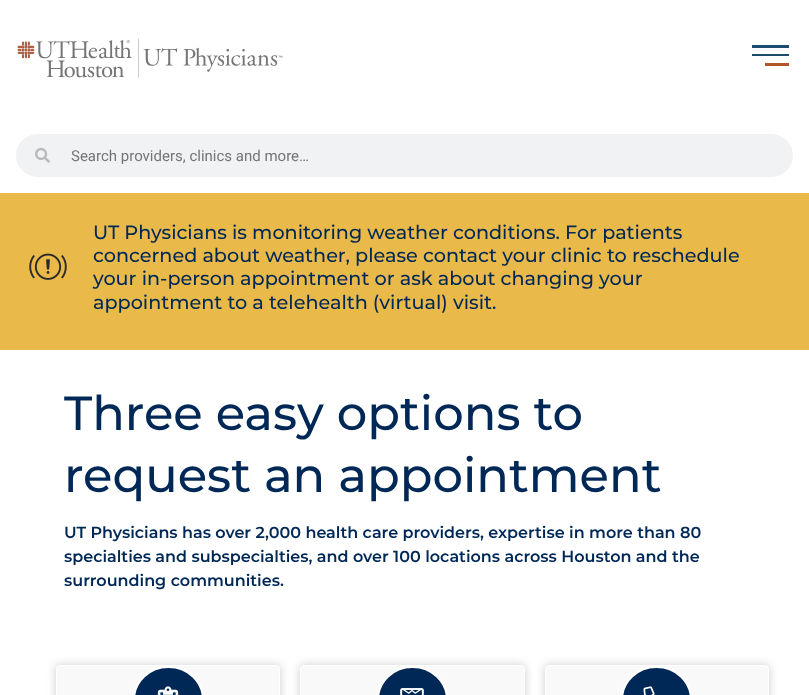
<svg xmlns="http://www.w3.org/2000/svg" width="809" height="695">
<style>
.a{font:15px Roboto;fill:#757575}
.b{font:500 19.2px Montserrat;fill:#002856}
.c{font:500 48px Montserrat;fill:#002856}
.d{font:600 16px Montserrat;fill:#002856}
</style>
<rect width="100%" height="100%" fill="#fff"/>
<image href="1.png" x="17" y="38" width="266" height="40"/>
<path fill="#1a4c6d" d="M752 54h37v2H752z"/>
<path fill="#1a4c6d" d="M752 45h37v3H752z"/>
<path fill="#b0552a" d="M765 63h24v3H765z"/>
<rect fill="#f1f2f3" x="16" y="134" width="777" height="43" rx="21.5"/>
<image href="2.png" x="35" y="147" width="15" height="16"/>
<path fill="#e9b949" d="M0 193h809v157H0z"/>
<image href="3.png" x="29" y="253" width="38" height="27"/>
<rect fill="#00000033" filter="blur(5px)" x="56" y="665" width="224" height="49" rx="4"/>
<rect fill="#f9f9f9" stroke="#fff" x="56.5" y="665.5" width="223" height="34" rx="3.5"/>
<rect fill="#002856" stroke="#fff" stroke-width="2" x="134" y="667" width="69" height="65" rx="34.5"/>
<image href="4.png" x="157" y="686" width="22" height="9"/>
<rect fill="#00000033" filter="blur(5px)" x="300" y="665" width="225" height="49" rx="4"/>
<rect fill="#f9f9f9" stroke="#fff" x="300.5" y="665.5" width="224" height="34" rx="3.5"/>
<rect fill="#002856" stroke="#fff" stroke-width="2" x="378" y="667" width="69" height="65" rx="34.5"/>
<image href="5.png" x="400" y="688" width="24" height="7"/>
<rect fill="#00000033" filter="blur(5px)" x="545" y="665" width="224" height="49" rx="4"/>
<rect fill="#f9f9f9" stroke="#fff" x="545.5" y="665.5" width="223" height="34" rx="3.5"/>
<rect fill="#002856" stroke="#fff" stroke-width="2" x="622" y="667" width="69" height="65" rx="34.5"/>
<image href="6.png" x="643" y="686" width="12" height="9"/>
<text class="a" x="71" y="161">Search providers, clinics and more…</text>
<text class="b" x="93" y="239">UT Physicians is monitoring weather conditions. For patients</text>
<text class="b" x="93" y="262">concerned about weather, please contact your clinic to reschedule</text>
<text class="b" x="93" y="285">your in-person appointment or ask about changing your</text>
<text class="b" x="93" y="309">appointment to a telehealth (virtual) visit.</text>
<text class="c" x="64" y="430">Three easy options to</text>
<text class="c" x="64" y="492">request an appointment</text>
<text class="d" x="64" y="538">UT Physicians has over 2,000 health care providers, expertise in more than 80</text>
<text class="d" x="64" y="562">specialties and subspecialties, and over 100 locations across Houston and the</text>
<text class="d" x="64" y="586">surrounding communities.</text>
</svg>
